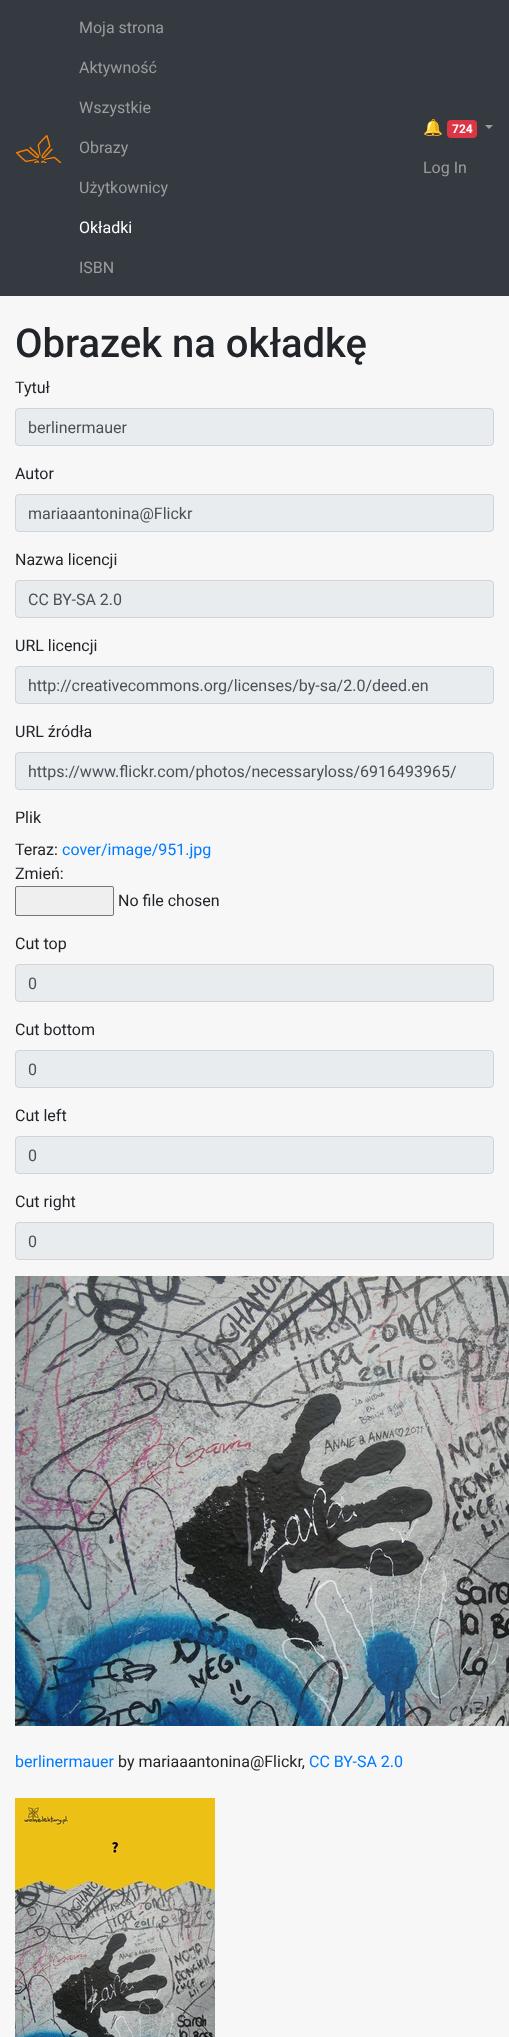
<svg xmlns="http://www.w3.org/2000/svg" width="509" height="2037">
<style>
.a{font:16px Roboto;fill:#9a9da0}
.b{font:16px Roboto;fill:#fff}
.c{font:16px Noto Color Emoji;fill:#9a9da0}
.d{font:bold 12px Roboto;fill:#fff}
.e{font:500 40px Roboto;fill:#212529}
.f{font:16px Roboto;fill:#212529}
.g{font:16px Roboto;fill:#495057}
.h{font:16px Roboto;fill:#007bff}
</style>
<rect width="100%" height="100%" fill="#f7f7f7"/>
<path fill="#343a40" d="M0 0h509v296H0z"/>
<image href="1.png" x="16" y="135" width="46" height="28"/>
<rect fill="#dc3545" x="447" y="120" width="30" height="18" rx="4"/>
<path fill="#9a9da0" d="M485 125h8l-4 4z"/>
<rect fill="#e9ecef" stroke="#ced4da" x="15.5" y="408.5" width="478" height="37" rx="3.5"/>
<rect fill="#e9ecef" stroke="#ced4da" x="15.5" y="494.5" width="478" height="37" rx="3.5"/>
<rect fill="#e9ecef" stroke="#ced4da" x="15.5" y="580.5" width="478" height="37" rx="3.5"/>
<rect fill="#e9ecef" stroke="#ced4da" x="15.5" y="666.5" width="478" height="37" rx="3.5"/>
<rect fill="#e9ecef" stroke="#ced4da" x="15.5" y="752.5" width="478" height="37" rx="3.5"/>
<rect fill="#efefef" stroke="#767676" x="15.5" y="886.5" width="98" height="29" rx="1.5"/>
<rect fill="#e9ecef" stroke="#ced4da" x="15.5" y="964.5" width="478" height="37" rx="3.5"/>
<rect fill="#e9ecef" stroke="#ced4da" x="15.5" y="1050.5" width="478" height="37" rx="3.5"/>
<rect fill="#e9ecef" stroke="#ced4da" x="15.5" y="1136.5" width="478" height="37" rx="3.5"/>
<rect fill="#e9ecef" stroke="#ced4da" x="15.5" y="1222.5" width="478" height="37" rx="3.5"/>
<image href="2.png" x="15" y="1276" width="494" height="450"/>
<image href="3.png" x="15" y="1798" width="200" height="239"/>
<text class="a" x="79" y="33">Moja strona</text>
<text class="a" x="79" y="73">Aktywność</text>
<text class="a" x="79" y="113">Wszystkie</text>
<text class="a" x="79" y="153">Obrazy</text>
<text class="a" x="79" y="193">Użytkownicy</text>
<text class="b" x="79" y="233">Okładki</text>
<text class="a" x="79" y="273">ISBN</text>
<text class="c" x="423" y="133">🔔</text>
<text class="d" x="452" y="133">724</text>
<text class="a" x="423" y="173">Log In</text>
<text class="e" x="15" y="357">Obrazek na okładkę</text>
<text class="f" x="15" y="393">Tytuł</text>
<text class="g" x="28" y="433">berlinermauer</text>
<text class="f" x="15" y="479">Autor</text>
<text class="g" x="28" y="519">mariaaantonina@Flickr</text>
<text class="f" x="15" y="565">Nazwa licencji</text>
<text class="g" x="28" y="605">CC BY-SA 2.0</text>
<text class="f" x="15" y="651">URL licencji</text>
<text class="g" x="28" y="691">http://creativecommons.org/licenses/by-sa/2.0/deed.en</text>
<text class="f" x="15" y="737">URL źródła</text>
<text class="g" x="28" y="777">https://www.flickr.com/photos/necessaryloss/6916493965/</text>
<text class="f" x="15" y="823">Plik</text>
<text class="f" x="15" y="855">Teraz:</text>
<text class="h" x="62" y="855">cover/image/951.jpg</text>
<text class="f" x="15" y="879">Zmień:</text>
<text class="f" x="118" y="906">No file chosen</text>
<text class="f" x="15" y="949">Cut top</text>
<text class="g" x="28" y="989">0</text>
<text class="f" x="15" y="1035">Cut bottom</text>
<text class="g" x="28" y="1075">0</text>
<text class="f" x="15" y="1121">Cut left</text>
<text class="g" x="28" y="1161">0</text>
<text class="f" x="15" y="1207">Cut right</text>
<text class="g" x="28" y="1247">0</text>
<text class="h" x="15" y="1767">berlinermauer</text>
<text class="f" x="118" y="1767">by mariaaantonina@Flickr,</text>
<text class="h" x="309" y="1767">CC BY-SA 2.0</text>
</svg>
